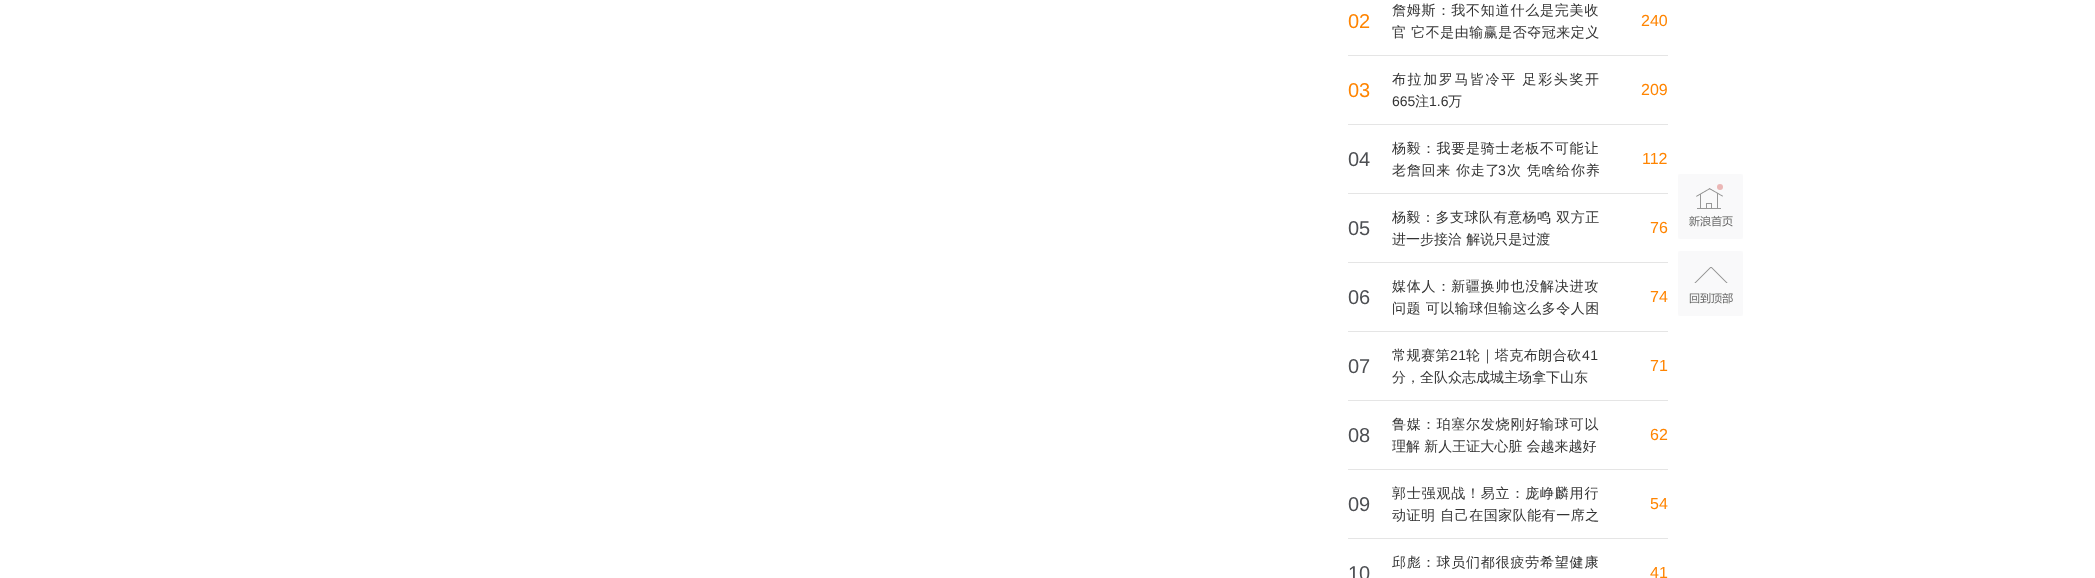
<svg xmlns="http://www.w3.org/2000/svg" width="2095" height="578">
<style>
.a{font:20px Liberation Sans;fill:#ff8400}
.b{font:500 14px WenQuanYi Zen Hei;letter-spacing:0.8px;fill:#333}
.c{font:500 14px WenQuanYi Zen Hei;letter-spacing:0.5px;fill:#333}
.d{font:16px Liberation Sans;fill:#ff8400}
.e{font:500 14px WenQuanYi Zen Hei;letter-spacing:1.6px;fill:#333}
.f{font:14px Liberation Sans;fill:#333}
.g{font:500 14px WenQuanYi Zen Hei;fill:#333}
.h{font:20px Liberation Sans;fill:#4d4f53}
.i{font:500 14px WenQuanYi Zen Hei;letter-spacing:0.75px;fill:#333}
.j{font:14px Liberation Sans;letter-spacing:0.75px;fill:#333}
.k{font:14px Liberation Sans;letter-spacing:0.5px;fill:#333}
</style>
<defs>
<clipPath id="clip1"><path d="M1392 413h207v44H1392z"/></clipPath>
<clipPath id="clip2"><path d="M1392 482h207v44H1392z"/></clipPath>
</defs>
<rect width="100%" height="100%" fill="#fff"/>
<path fill="#e5e5e5" d="M1348 55h320v1H1348z"/>
<path fill="#e5e5e5" d="M1348 124h320v1H1348z"/>
<path fill="#e5e5e5" d="M1348 193h320v1H1348z"/>
<path fill="#e5e5e5" d="M1348 262h320v1H1348z"/>
<path fill="#e5e5e5" d="M1348 331h320v1H1348z"/>
<path fill="#e5e5e5" d="M1348 400h320v1H1348z"/>
<path fill="#e5e5e5" d="M1348 469h320v1H1348z"/>
<path fill="#e5e5e5" d="M1348 538h320v1H1348z"/>
<image href="1.png" x="1678" y="174" width="65" height="65"/>
<circle fill="#ebb7b6" cx="1720" cy="187" r="3"/>
<image href="2.png" x="1678" y="251" width="65" height="65"/>
<text class="a" x="1348" y="28">02</text>
<text class="b" x="1392" y="15">詹姆斯：我不知道什么是完美收</text>
<text class="c" x="1392" y="37">官 它不是由输赢是否夺冠来定义</text>
<text class="d" x="1641" y="26">240</text>
<text class="a" x="1348" y="97">03</text>
<text class="e" x="1392" y="84">布拉加罗马皆冷平 足彩头奖开</text>
<text class="f" x="1392" y="106">665</text>
<text class="g" x="1415" y="106">注</text>
<text class="f" x="1429" y="106">1.6</text>
<text class="g" x="1448" y="106">万</text>
<text class="d" x="1641" y="95">209</text>
<text class="h" x="1348" y="166">04</text>
<text class="b" x="1392" y="153">杨毅：我要是骑士老板不可能让</text>
<text class="i" x="1392" y="175">老詹回来 你走了</text>
<text class="j" x="1498" y="175">3</text>
<text class="i" x="1507" y="175">次 凭啥给你养</text>
<text class="d" x="1642" y="164">112</text>
<text class="h" x="1348" y="235">05</text>
<text class="c" x="1392" y="222">杨毅：多支球队有意杨鸣 双方正</text>
<text class="g" x="1392" y="244">进一步接洽 解说只是过渡</text>
<text class="d" x="1650" y="233">76</text>
<text class="h" x="1348" y="304">06</text>
<text class="b" x="1392" y="291">媒体人：新疆换帅也没解决进攻</text>
<text class="c" x="1392" y="313">问题 可以输球但输这么多令人困</text>
<text class="d" x="1650" y="302">74</text>
<text class="h" x="1348" y="373">07</text>
<text class="c" x="1392" y="360">常规赛第</text>
<text class="k" x="1450" y="360">21</text>
<text class="c" x="1466" y="360">轮｜塔克布朗合砍</text>
<text class="k" x="1582" y="360">41</text>
<text class="g" x="1392" y="382">分，全队众志成城主场拿下山东</text>
<text class="d" x="1650" y="371">71</text>
<text class="h" x="1348" y="442">08</text>
<text class="b" x="1392" y="429">鲁媒：珀塞尔发烧刚好输球可以</text>
<g clip-path="url(#clip1)">
<text class="g" x="1392" y="451">理解 新人王证大心脏 会越来越好</text>
</g>
<text class="d" x="1650" y="440">62</text>
<text class="h" x="1348" y="511">09</text>
<g clip-path="url(#clip2)">
<text class="b" x="1392" y="498">郭士强观战！易立：庞峥麟用行</text>
</g>
<text class="c" x="1392" y="520">动证明 自己在国家队能有一席之</text>
<text class="d" x="1650" y="509">54</text>
<text class="b" x="1392" y="567">邱彪：球员们都很疲劳希望健康</text>
<text class="h" x="1348" y="580">10</text>
<text class="d" x="1650" y="578">41</text>
</svg>
